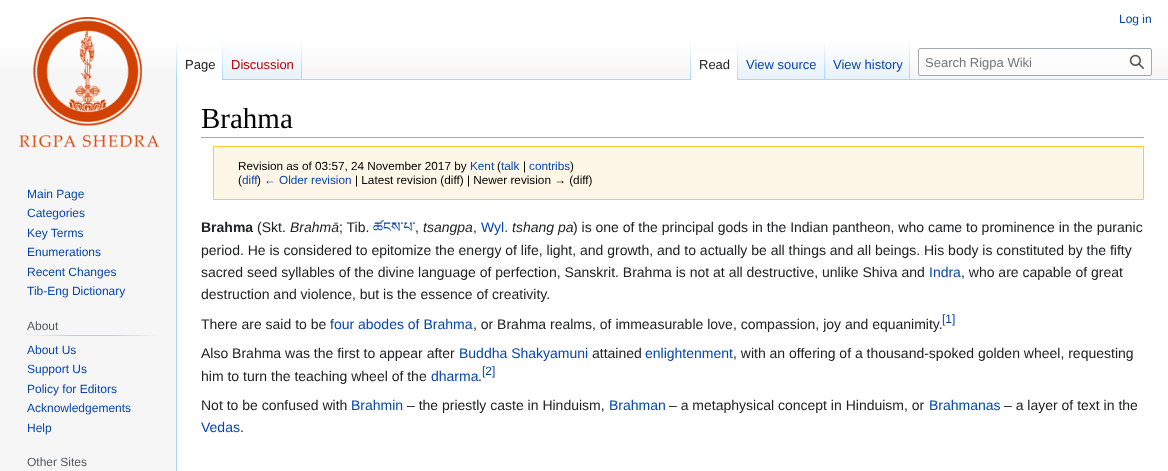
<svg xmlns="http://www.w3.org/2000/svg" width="1168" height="471">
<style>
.a{font:12px Liberation Sans;fill:#0645ad}
.b{font:13px Liberation Sans;fill:#202122}
.c{font:13px Liberation Sans;fill:#ba0000}
.d{font:13px Liberation Sans;fill:#0645ad}
.e{font:13px Liberation Sans;fill:#72777d}
.f{font:12px Liberation Sans;fill:#54595d}
.g{font:29px Liberation Serif;fill:#000}
.h{font:11.75px Liberation Sans;fill:#000}
.i{font:11.75px Liberation Sans;fill:#0645ad}
.j{font:bold 14px Liberation Sans;fill:#202122}
.k{font:14px Liberation Sans;fill:#202122}
.l{font:italic 14px Liberation Sans;fill:#202122}
.m{font:14px Noto Serif Tibetan;fill:#0645ad}
.n{font:14px Liberation Sans;fill:#0645ad}
</style>
<defs>
<linearGradient id="g1" gradientUnits="userSpaceOnUse" x1="584" y1="0" x2="584" y2="80"><stop offset="0.5" stop-color="#fff"/><stop offset="1" stop-color="#f6f6f6"/></linearGradient>
<linearGradient id="g2" gradientUnits="userSpaceOnUse" x1="177" y1="40" x2="177" y2="80"><stop offset="0" stop-color="#a7d7f9" stop-opacity="0"/><stop offset="1" stop-color="#a7d7f9"/></linearGradient>
<linearGradient id="g3" gradientUnits="userSpaceOnUse" x1="223" y1="40" x2="223" y2="80"><stop offset="0" stop-color="#fff"/><stop offset="1" stop-color="#a7d7f9"/></linearGradient>
<linearGradient id="g4" gradientUnits="userSpaceOnUse" x1="263" y1="80" x2="263" y2="40"><stop offset="0" stop-color="#77c1f6"/><stop offset="0.03" stop-color="#e8f2f8"/><stop offset="1" stop-color="#fff"/></linearGradient>
<linearGradient id="g5" gradientUnits="userSpaceOnUse" x1="302" y1="40" x2="302" y2="80"><stop offset="0" stop-color="#a7d7f9" stop-opacity="0"/><stop offset="1" stop-color="#a7d7f9"/></linearGradient>
<linearGradient id="g6" gradientUnits="userSpaceOnUse" x1="691" y1="40" x2="691" y2="80"><stop offset="0" stop-color="#a7d7f9" stop-opacity="0"/><stop offset="1" stop-color="#a7d7f9"/></linearGradient>
<linearGradient id="g7" gradientUnits="userSpaceOnUse" x1="738" y1="40" x2="738" y2="80"><stop offset="0" stop-color="#fff"/><stop offset="1" stop-color="#a7d7f9"/></linearGradient>
<linearGradient id="g8" gradientUnits="userSpaceOnUse" x1="782" y1="80" x2="782" y2="40"><stop offset="0" stop-color="#77c1f6"/><stop offset="0.03" stop-color="#e8f2f8"/><stop offset="1" stop-color="#fff"/></linearGradient>
<linearGradient id="g9" gradientUnits="userSpaceOnUse" x1="825" y1="40" x2="825" y2="80"><stop offset="0" stop-color="#a7d7f9" stop-opacity="0"/><stop offset="1" stop-color="#a7d7f9"/></linearGradient>
<linearGradient id="g10" gradientUnits="userSpaceOnUse" x1="868" y1="80" x2="868" y2="40"><stop offset="0" stop-color="#77c1f6"/><stop offset="0.03" stop-color="#e8f2f8"/><stop offset="1" stop-color="#fff"/></linearGradient>
<linearGradient id="g11" gradientUnits="userSpaceOnUse" x1="910" y1="40" x2="910" y2="80"><stop offset="0" stop-color="#a7d7f9" stop-opacity="0"/><stop offset="1" stop-color="#a7d7f9"/></linearGradient>
<linearGradient id="g12" gradientUnits="userSpaceOnUse" x1="27" y1="336" x2="158" y2="336"><stop offset="0" stop-color="#f6f6f6"/><stop offset="0.33" stop-color="#c8ccd1"/><stop offset="0.66" stop-color="#c8ccd1"/><stop offset="1" stop-color="#f6f6f6"/></linearGradient>
</defs>
<rect width="100%" height="100%" fill="#f6f6f6"/>
<path fill="url(#g1)" d="M0 0h1168v69H0z"/>
<path fill="#a7d7f9" d="M176 79h1v392H176z"/>
<path fill="url(#g2)" d="M176 40h1v40H176z"/>
<path fill="#fff" d="M177 51h45v29H177z"/>
<path fill="url(#g3)" d="M222 40h1v40H222z"/>
<path fill="url(#g4)" d="M223 46h79v34H223z"/>
<path fill="url(#g5)" d="M301 40h1v40H301z"/>
<path fill="#a7d7f9" d="M302 79h866v1H302z"/>
<path fill="url(#g6)" d="M690 40h1v40H690z"/>
<path fill="#fff" d="M691 51h46v29H691z"/>
<path fill="url(#g7)" d="M737 40h1v40H737z"/>
<path fill="url(#g8)" d="M738 46h87v33H738z"/>
<path fill="url(#g9)" d="M824 40h1v40H824z"/>
<path fill="url(#g10)" d="M825 46h85v33H825z"/>
<path fill="url(#g11)" d="M909 40h1v40H909z"/>
<rect fill="#ffffff80" stroke="#a2a9b1" x="918.5" y="48.5" width="233" height="27" rx="1.5"/>
<image href="1.png" x="1129" y="54" width="15" height="15"/>
<image href="2.png" x="19" y="17" width="141" height="131"/>
<path fill="url(#g12)" d="M27 335h131v1H27z"/>
<path fill="#fff" d="M177 80h991v391H177z"/>
<path fill="#a2a9b1" d="M201 137h943v1H201z"/>
<path fill="#fef6e7" stroke="#fc3" d="M213.5 146.5h930v53H213.5z"/>
<text class="a" x="1119" y="23">Log in</text>
<text class="b" x="185" y="69">Page</text>
<text class="c" x="231" y="69">Discussion</text>
<text class="b" x="699" y="69">Read</text>
<text class="d" x="746" y="69">View source</text>
<text class="d" x="833" y="69">View history</text>
<text class="e" x="925" y="67">Search Rigpa Wiki</text>
<text class="a" x="27" y="198">Main Page</text>
<text class="a" x="27" y="217">Categories</text>
<text class="a" x="27" y="237">Key Terms</text>
<text class="a" x="27" y="256">Enumerations</text>
<text class="a" x="27" y="276">Recent Changes</text>
<text class="a" x="27" y="295">Tib-Eng Dictionary</text>
<text class="f" x="27" y="330">About</text>
<text class="a" x="27" y="354">About Us</text>
<text class="a" x="27" y="373">Support Us</text>
<text class="a" x="27" y="393">Policy for Editors</text>
<text class="a" x="27" y="412">Acknowledgements</text>
<text class="a" x="27" y="432">Help</text>
<text class="f" x="27" y="466">Other Sites</text>
<text class="g" x="201" y="128">Brahma</text>
<text class="h" x="238" y="170">Revision as of 03:57, 24 November 2017 by</text>
<text class="i" x="470" y="170">Kent</text>
<text class="h" x="497" y="170">(</text>
<text class="i" x="501" y="170">talk</text>
<text class="h" x="523" y="170">|</text>
<text class="i" x="529" y="170">contribs</text>
<text class="h" x="570" y="170">)</text>
<text class="h" x="238" y="184">(</text>
<text class="i" x="242" y="184">diff</text>
<text class="h" x="257" y="184">)</text>
<text class="i" x="264" y="184">← Older revision</text>
<text class="h" x="355" y="184">| Latest revision (diff) | Newer revision → (diff)</text>
<text class="j" x="201" y="232">Brahma</text>
<text class="k" x="257" y="232">(Skt.</text>
<text class="l" x="290" y="232">Brahmā</text>
<text class="k" x="339" y="232">; Tib.</text>
<text class="m" x="373" y="232">ཚངས་པ་</text>
<text class="k" x="415" y="232">,</text>
<text class="l" x="423" y="232">tsangpa</text>
<text class="k" x="473" y="232">,</text>
<text class="n" x="481" y="232">Wyl.</text>
<text class="l" x="512" y="232">tshang pa</text>
<text class="k" x="573" y="232">) is one of the principal gods in the Indian pantheon, who came to prominence in the puranic</text>
<text class="k" x="201" y="255">period. He is considered to epitomize the energy of life, light, and growth, and to actually be all things and all beings. His body is constituted by the fifty</text>
<text class="k" x="201" y="277">sacred seed syllables of the divine language of perfection, Sanskrit. Brahma is not at all destructive, unlike Shiva and</text>
<text class="n" x="929" y="277">Indra</text>
<text class="k" x="961" y="277">, who are capable of great</text>
<text class="k" x="201" y="299">destruction and violence, but is the essence of creativity.</text>
<text class="k" x="201" y="329">There are said to be</text>
<text class="n" x="330" y="329">four abodes of Brahma</text>
<text class="k" x="473" y="329">, or Brahma realms, of immeasurable love, compassion, joy and equanimity.</text>
<text class="a" x="942" y="323">[1]</text>
<text class="k" x="201" y="358">Also Brahma was the first to appear after</text>
<text class="n" x="459" y="358">Buddha Shakyamuni</text>
<text class="k" x="592" y="358">attained</text>
<text class="n" x="645" y="358">enlightenment</text>
<text class="k" x="733" y="358">, with an offering of a thousand-spoked golden wheel, requesting</text>
<text class="k" x="201" y="381">him to turn the teaching wheel of the</text>
<text class="n" x="431" y="381">dharma</text>
<text class="k" x="478" y="381">.</text>
<text class="a" x="482" y="375">[2]</text>
<text class="k" x="201" y="410">Not to be confused with</text>
<text class="n" x="351" y="410">Brahmin</text>
<text class="k" x="407" y="410">– the priestly caste in Hinduism,</text>
<text class="n" x="609" y="410">Brahman</text>
<text class="k" x="669" y="410">– a metaphysical concept in Hinduism, or</text>
<text class="n" x="929" y="410">Brahmanas</text>
<text class="k" x="1004" y="410">– a layer of text in the</text>
<text class="n" x="201" y="432">Vedas</text>
<text class="k" x="240" y="432">.</text>
</svg>
